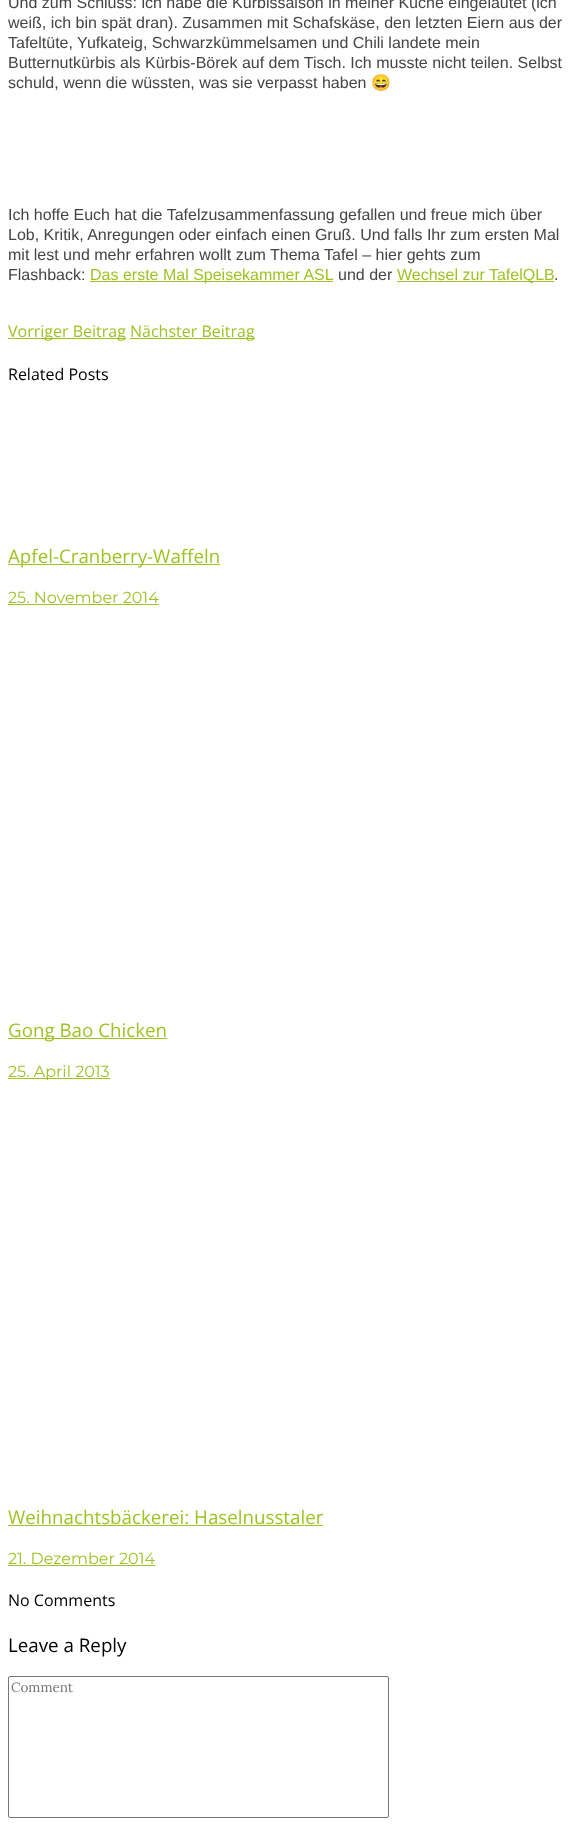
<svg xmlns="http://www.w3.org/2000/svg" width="576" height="1825">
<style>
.a{font:16px Liberation Sans;fill:#444}
.b{font:16px Noto Color Emoji;fill:#444}
.c{font:16px Liberation Sans;fill:#9ec223}
.d{font:16px Open Sans;fill:#9ec223}
.e{font:16px Open Sans;fill:#000}
.f{font:18.75px Open Sans;fill:#9ec223}
.g{font:16px Montserrat;fill:#9ec223}
.h{font:18.75px Open Sans;fill:#000}
.i{font:13.5px Lora;fill:#757575}
</style>
<rect width="100%" height="100%" fill="#fff"/>
<path fill="#9ec223" d="M90 281h243v1H90z"/>
<path fill="#9ec223" d="M397 281h157v1H397z"/>
<path fill="#9ec223" d="M8 338h118v1H8z"/>
<path fill="#9ec223" d="M130 338h125v1H130z"/>
<path fill="#9ec223" d="M8 564h212v1H8z"/>
<path fill="#9ec223" d="M8 604h151v1H8z"/>
<path fill="#9ec223" d="M8 1038h159v1H8z"/>
<path fill="#9ec223" d="M8 1078h102v1H8z"/>
<path fill="#9ec223" d="M8 1525h315v1H8z"/>
<path fill="#9ec223" d="M8 1565h147v1H8z"/>
<rect fill="none" stroke="#767676" x="8.5" y="1676.5" width="380" height="141" rx="1.5"/>
<text class="a" x="8" y="8">Und zum Schluss: ich habe die Kürbissaison in meiner Küche eingeläutet (ich</text>
<text class="a" x="8" y="28">weiß, ich bin spät dran). Zusammen mit Schafskäse, den letzten Eiern aus der</text>
<text class="a" x="8" y="48">Tafeltüte, Yufkateig, Schwarzkümmelsamen und Chili landete mein</text>
<text class="a" x="8" y="68">Butternutkürbis als Kürbis-Börek auf dem Tisch. Ich musste nicht teilen. Selbst</text>
<text class="a" x="8" y="88">schuld, wenn die wüssten, was sie verpasst haben</text>
<text class="b" x="371" y="88">😄</text>
<text class="a" x="8" y="220">Ich hoffe Euch hat die Tafelzusammenfassung gefallen und freue mich über</text>
<text class="a" x="8" y="240">Lob, Kritik, Anregungen oder einfach einen Gruß. Und falls Ihr zum ersten Mal</text>
<text class="a" x="8" y="260">mit lest und mehr erfahren wollt zum Thema Tafel – hier gehts zum</text>
<text class="a" x="8" y="280">Flashback:</text>
<text class="c" x="90" y="280">Das erste Mal Speisekammer ASL</text>
<text class="a" x="338" y="280">und der</text>
<text class="c" x="397" y="280">Wechsel zur TafelQLB</text>
<text class="a" x="554" y="280">.</text>
<text class="d" x="8" y="337">Vorriger Beitrag</text>
<text class="d" x="130" y="337">Nächster Beitrag</text>
<text class="e" x="8" y="380">Related Posts</text>
<text class="f" x="8" y="563">Apfel-Cranberry-Waffeln</text>
<text class="g" x="8" y="603">25. November 2014</text>
<text class="f" x="8" y="1037">Gong Bao Chicken</text>
<text class="g" x="8" y="1077">25. April 2013</text>
<text class="f" x="8" y="1524">Weihnachtsbäckerei: Haselnusstaler</text>
<text class="g" x="8" y="1564">21. Dezember 2014</text>
<text class="e" x="8" y="1606">No Comments</text>
<text class="h" x="8" y="1652">Leave a Reply</text>
<text class="i" x="11" y="1692">Comment</text>
</svg>
